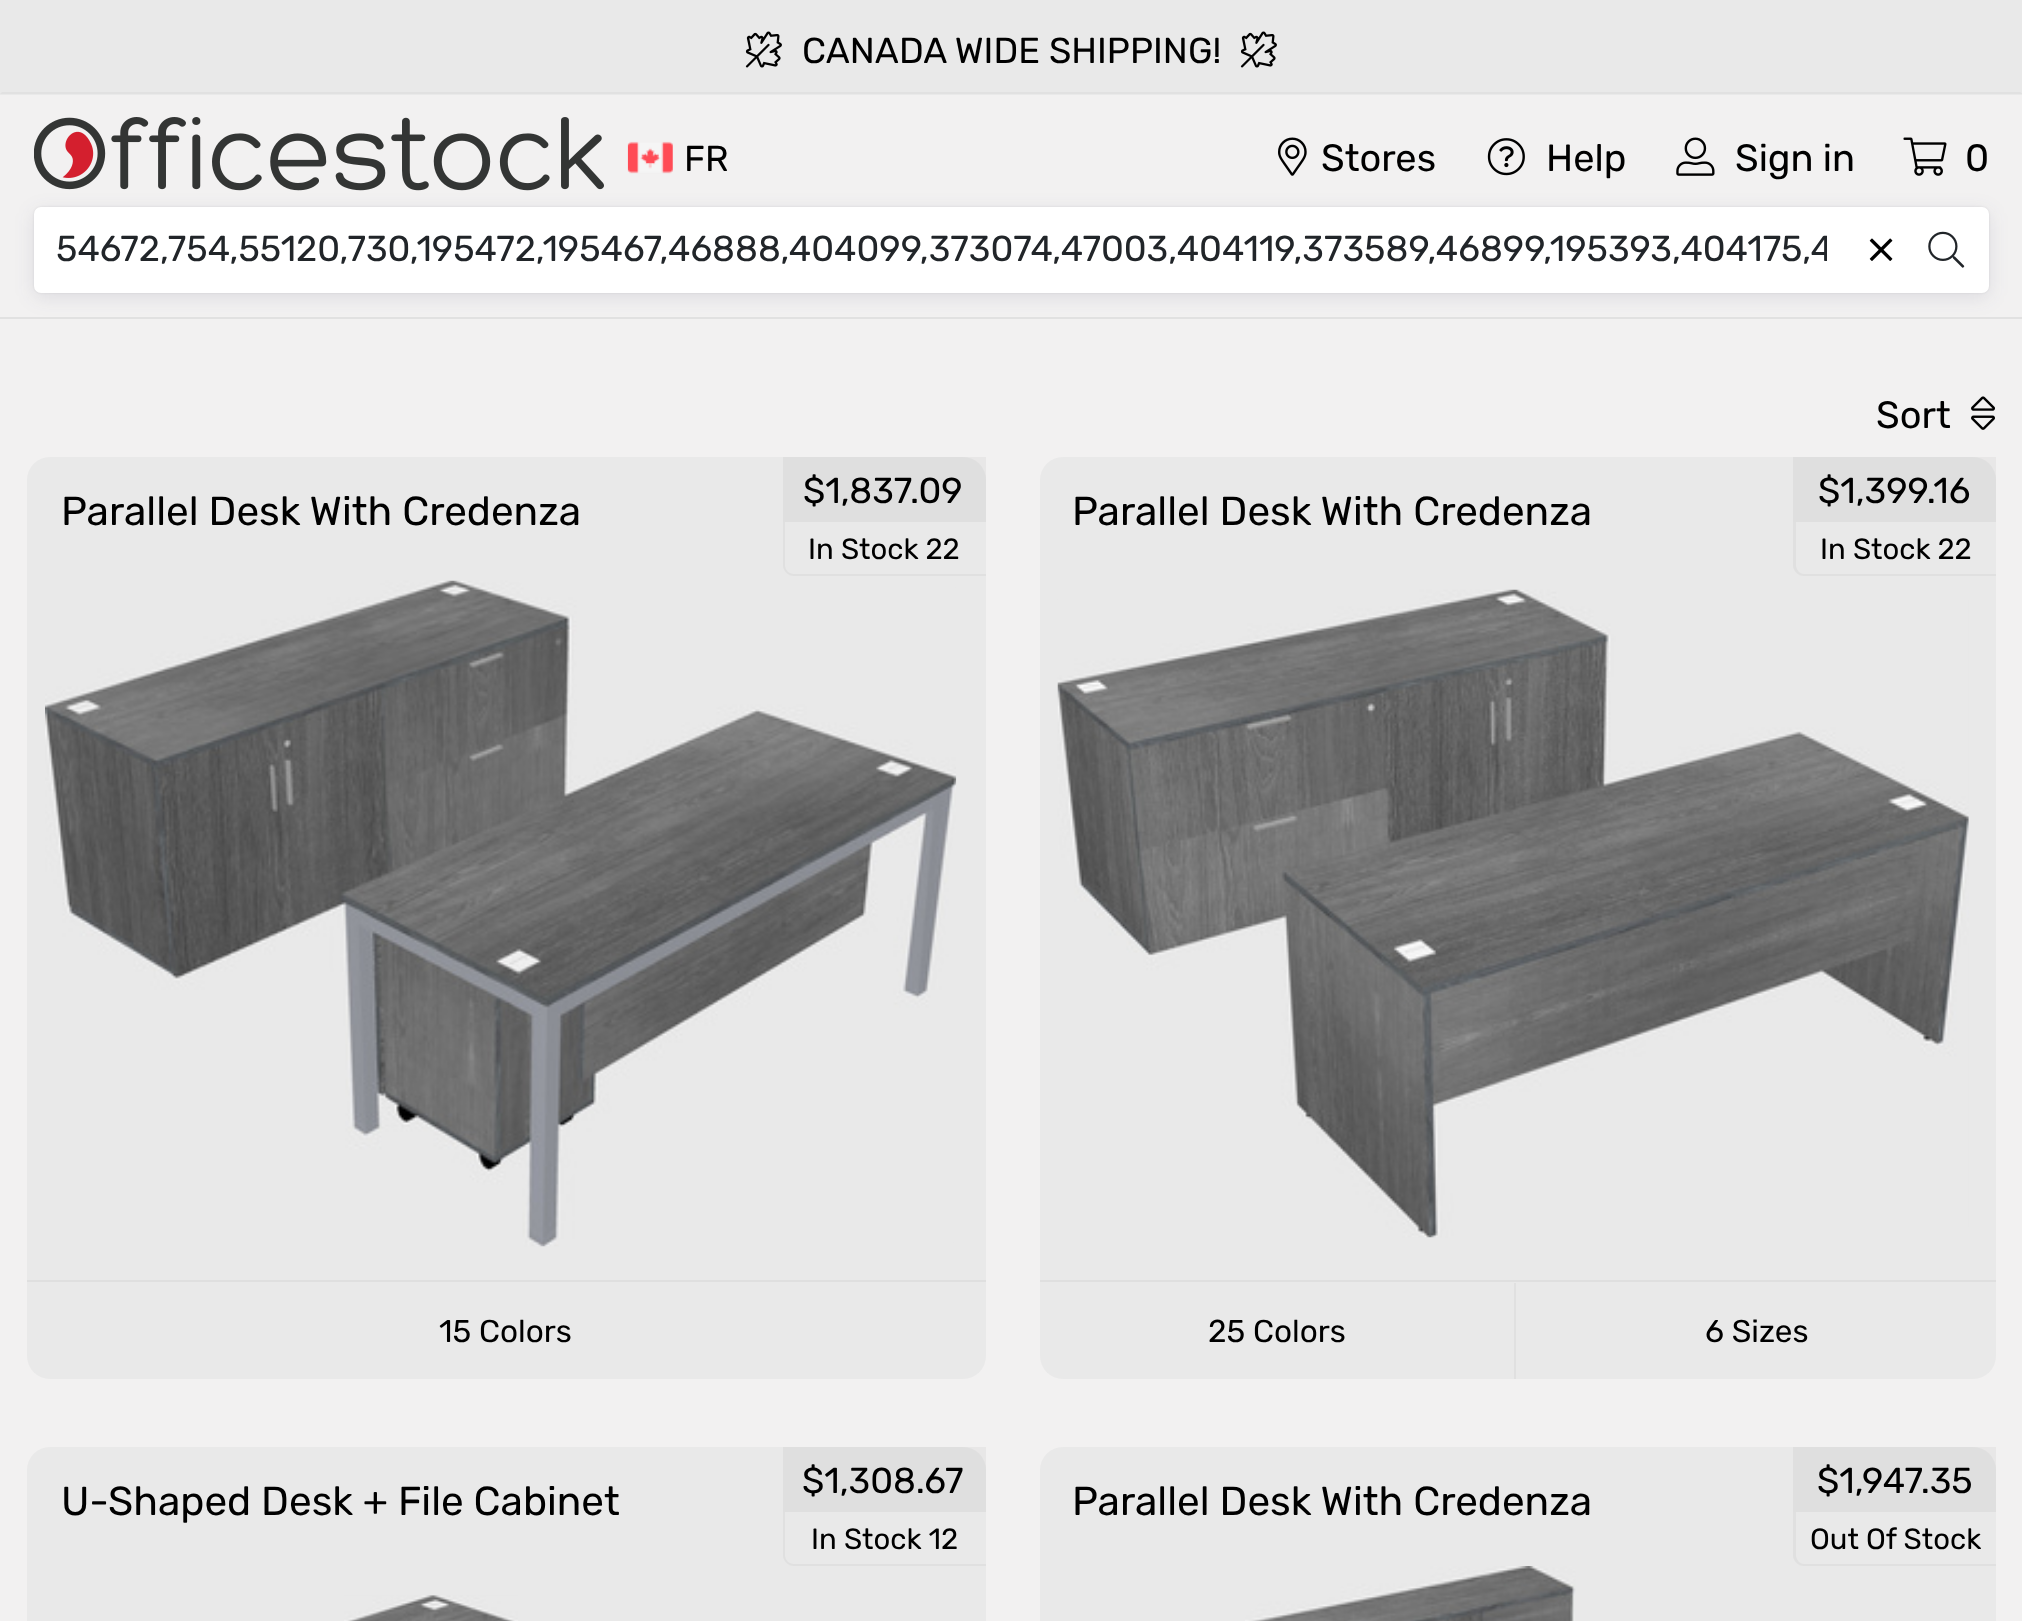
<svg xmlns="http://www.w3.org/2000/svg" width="2022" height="1621">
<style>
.a{font:36px Rubik;fill:#000}
.b{font:38px Rubik;fill:#000}
.c{font:36px Rubik;fill:#212529}
.d{font:40.5px Rubik;fill:#000}
.e{font:29.25px Rubik;fill:#000}
.f{font:31.5px Rubik;fill:#000}
</style>
<defs>
<clipPath id="clip1"><path d="M56 223h1771v54H56z"/></clipPath>
</defs>
<rect width="100%" height="100%" fill="#f2f1f1"/>
<path fill="#e9e9e9" d="M0 0h2022v95H0z"/>
<path fill="#e1e1e1" d="M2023 94h-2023l2-2h2018z"/>
<image href="1.png" x="745" y="31" width="37" height="37"/>
<image href="1.png" x="1240" y="31" width="37" height="37"/>
<path fill="#e1e1e1" d="M0 317h2022v2H0z"/>
<image href="2.png" x="34" y="117" width="570" height="74"/>
<image href="3.png" x="627" y="141" width="46" height="33"/>
<image href="4.png" x="1278" y="137" width="29" height="39"/>
<image href="5.png" x="1487" y="138" width="38" height="38"/>
<image href="6.png" x="1676" y="137" width="39" height="39"/>
<image href="7.png" x="1903" y="137" width="44" height="39"/>
<rect fill="#00000014" filter="blur(1px)" x="34" y="207" width="1955" height="86" rx="7"/>
<rect fill="#32325d1c" filter="blur(10px)" x="34" y="212" width="1955" height="85" rx="7"/>
<rect fill="#fff" x="34" y="207" width="1955" height="86" rx="7"/>
<image href="8.png" x="1869" y="238" width="24" height="23"/>
<image href="9.png" x="1928" y="231" width="37" height="37"/>
<image href="10.png" x="1971" y="396" width="24" height="34"/>
<rect fill="#e9e9e9" x="27" y="457" width="959" height="922" rx="23"/>
<path fill="#0000000a" d="M783 457h203v65H783z"/>
<path fill="#e0e0e0" fill-rule="evenodd" d="M783 522h203v54h-192c-6 0-11-5-11-11zm2 0h201v52h-192c-5 0-9-4-9-9z"/>
<image href="11.png" x="45" y="580" width="912" height="667"/>
<path fill="#dfdfdf" d="M27 1280h959v2H27z"/>
<rect fill="#e9e9e9" x="1040" y="457" width="956" height="922" rx="23"/>
<path fill="#0000000a" d="M1793 457h203v65H1793z"/>
<path fill="#e0e0e0" fill-rule="evenodd" d="M1793 522h203v54h-192c-6 0-11-5-11-11zm3 0h200v52h-192c-4 0-8-4-8-9z"/>
<image href="12.png" x="1057" y="589" width="912" height="649"/>
<path fill="#dfdfdf" d="M1040 1280h956v2H1040z"/>
<path fill="#e0e0e0" d="M1514 1283h2v96H1514z"/>
<rect fill="#e9e9e9" x="27" y="1447" width="959" height="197" rx="23"/>
<path fill="#0000000a" d="M783 1447h203v65H783z"/>
<path fill="#e0e0e0" fill-rule="evenodd" d="M783 1512h203v54h-192c-6 0-11-5-11-11zm2 0h201v52h-192c-5 0-9-4-9-9z"/>
<image href="13.png" x="344" y="1595" width="174" height="26"/>
<rect fill="#e9e9e9" x="1040" y="1447" width="956" height="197" rx="23"/>
<path fill="#0000000a" d="M1793 1447h203v65H1793z"/>
<path fill="#e0e0e0" fill-rule="evenodd" d="M1793 1512h203v54h-192c-6 0-11-5-11-11zm3 0h200v52h-192c-4 0-8-4-8-9z"/>
<image href="14.png" x="1245" y="1566" width="331" height="55"/>
<text class="a" x="802" y="63">CANADA WIDE SHIPPING!</text>
<text class="a" x="684" y="171">FR</text>
<text class="b" x="1321" y="171">Stores</text>
<text class="b" x="1546" y="171">Help</text>
<text class="b" x="1735" y="171">Sign in</text>
<text class="b" x="1965" y="171">0</text>
<g clip-path="url(#clip1)">
<text class="c" x="56" y="261">54672,754,55120,730,195472,195467,46888,404099,373074,47003,404119,373589,46899,195393,404175,4</text>
</g>
<text class="b" x="1876" y="428">Sort</text>
<text class="a" x="803" y="503">$1,837.09</text>
<text class="d" x="61" y="525">Parallel Desk With Credenza</text>
<text class="e" x="808" y="559">In Stock 22</text>
<text class="f" x="439" y="1342">15 Colors</text>
<text class="a" x="1818" y="503">$1,399.16</text>
<text class="d" x="1072" y="525">Parallel Desk With Credenza</text>
<text class="e" x="1820" y="559">In Stock 22</text>
<text class="f" x="1208" y="1342">25 Colors</text>
<text class="f" x="1705" y="1342">6 Sizes</text>
<text class="a" x="802" y="1493">$1,308.67</text>
<text class="d" x="61" y="1515">U-Shaped Desk + File Cabinet</text>
<text class="e" x="811" y="1549">In Stock 12</text>
<text class="a" x="1817" y="1493">$1,947.35</text>
<text class="d" x="1072" y="1515">Parallel Desk With Credenza</text>
<text class="e" x="1810" y="1549">Out Of Stock</text>
</svg>
